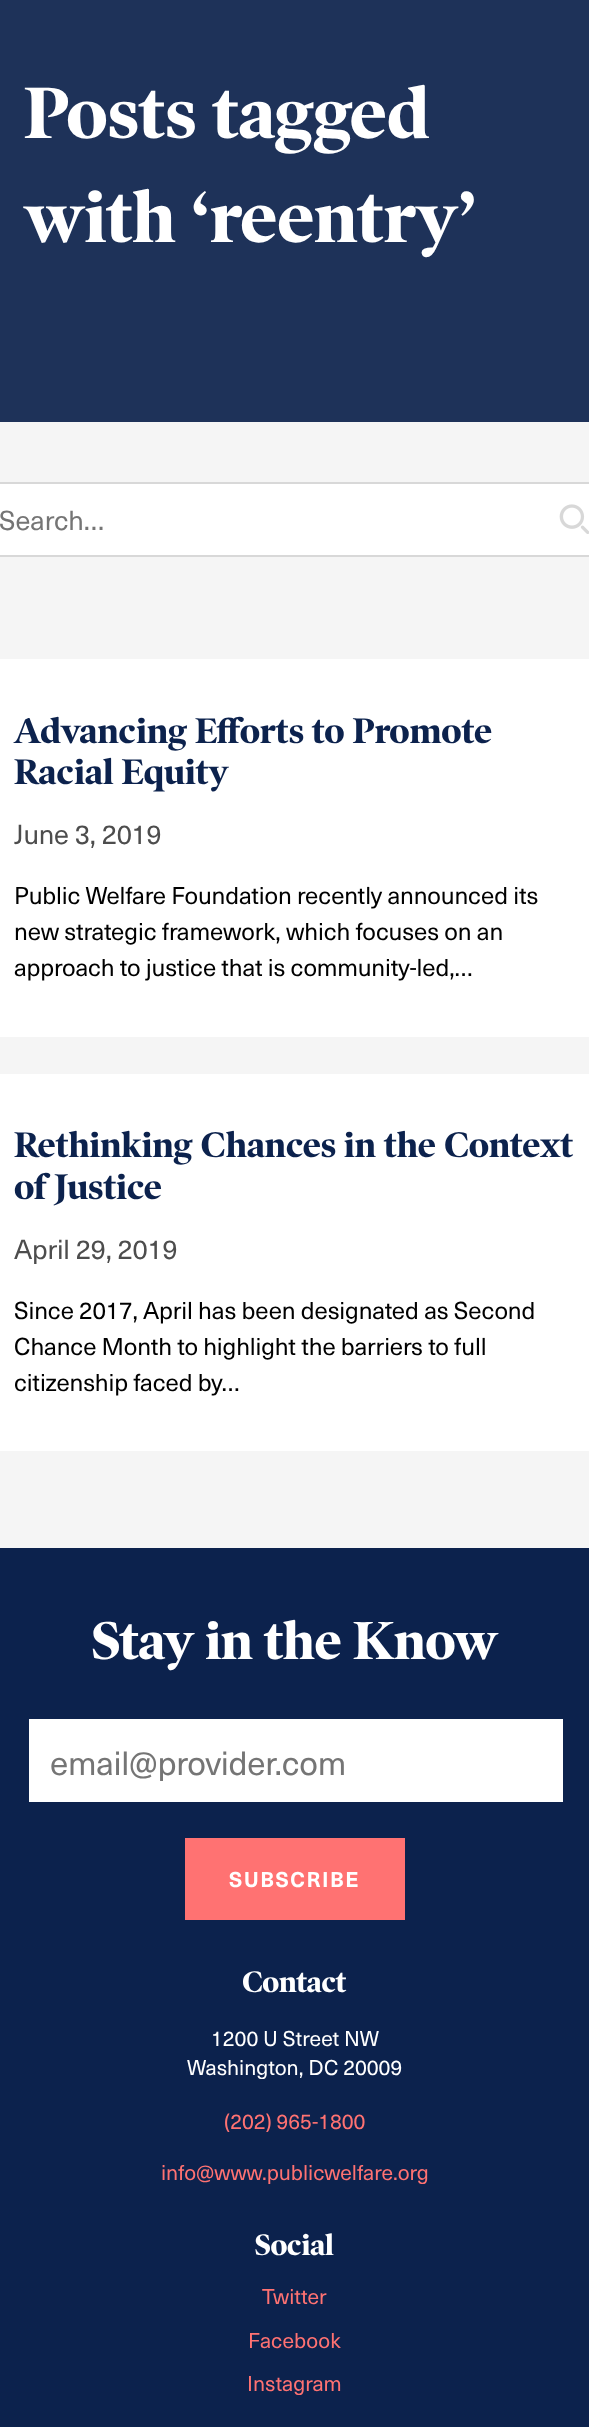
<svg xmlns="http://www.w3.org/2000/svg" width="589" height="2427">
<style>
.a{font:bold 73.5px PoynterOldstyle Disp;fill:#fff}
.b{font:27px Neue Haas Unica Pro;fill:#757575}
.c{font:bold 36px PoynterOldstyle Disp;fill:#0c224d}
.d{font:27px Neue Haas Unica Pro;letter-spacing:-0.2px;fill:#4d4d4d}
.e{font:24px Neue Haas Unica Pro;letter-spacing:-0.15px;fill:#000}
.f{font:bold 54px PoynterOldstyle Disp;letter-spacing:-0.3px;fill:#fff}
.g{font:33px Neue Haas Unica Pro;letter-spacing:-0.25px;fill:#757575}
.h{font:bold 21px Neue Haas Unica Pro;letter-spacing:1.5px;fill:#fff}
.i{font:bold 30px PoynterOldstyle Disp;letter-spacing:-0.25px;fill:#fff}
.j{font:21px Neue Haas Unica Pro;fill:#fff}
.k{font:21px Neue Haas Unica Pro;fill:#ff7272}
</style>
<rect width="100%" height="100%" fill="#0c224d"/>
<path fill="#1e3259" d="M0 0h589v422H0z"/>
<path fill="#f5f5f5" d="M0 422h589v1126H0z"/>
<path fill="#fff" stroke="#d8d8d8" stroke-width="2" d="M-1 483h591v73H-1z"/>
<image href="1.png" x="559" y="504" width="30" height="30"/>
<path fill="#fff" d="M0 659h589v378H0z"/>
<path fill="#fff" d="M0 1074h589v377H0z"/>
<path fill="#fff" d="M29 1719h534v83H29z"/>
<path fill="#ff7272" d="M185 1838h220v82H185z"/>
<text class="a" x="24" y="138">Posts tagged</text>
<text class="a" x="24" y="242">with ‘reentry’</text>
<text class="b" x="-1" y="530">Search…</text>
<text class="c" x="14" y="743">Advancing Efforts to Promote</text>
<text class="c" x="14" y="784">Racial Equity</text>
<text class="d" x="14" y="844">June 3, 2019</text>
<text class="e" x="14" y="904">Public Welfare Foundation recently announced its</text>
<text class="e" x="14" y="940">new strategic framework, which focuses on an</text>
<text class="e" x="14" y="976">approach to justice that is community-led,…</text>
<text class="c" x="14" y="1157">Rethinking Chances in the Context</text>
<text class="c" x="14" y="1199">of Justice</text>
<text class="d" x="14" y="1259">April 29, 2019</text>
<text class="e" x="14" y="1319">Since 2017, April has been designated as Second</text>
<text class="e" x="14" y="1355">Chance Month to highlight the barriers to full</text>
<text class="e" x="14" y="1391">citizenship faced by…</text>
<text class="f" x="92" y="1659">Stay in the Know</text>
<text class="g" x="50" y="1775">email@provider.com</text>
<text class="h" x="229" y="1887">SUBSCRIBE</text>
<text class="i" x="242" y="1992">Contact</text>
<text class="j" x="211" y="2046">1200 U Street NW</text>
<text class="j" x="187" y="2075">Washington, DC 20009</text>
<text class="k" x="224" y="2129">(202) 965-1800</text>
<text class="k" x="161" y="2180">info@www.publicwelfare.org</text>
<text class="i" x="255" y="2255">Social</text>
<text class="k" x="262" y="2304">Twitter</text>
<text class="k" x="248" y="2348">Facebook</text>
<text class="k" x="247" y="2391">Instagram</text>
</svg>
